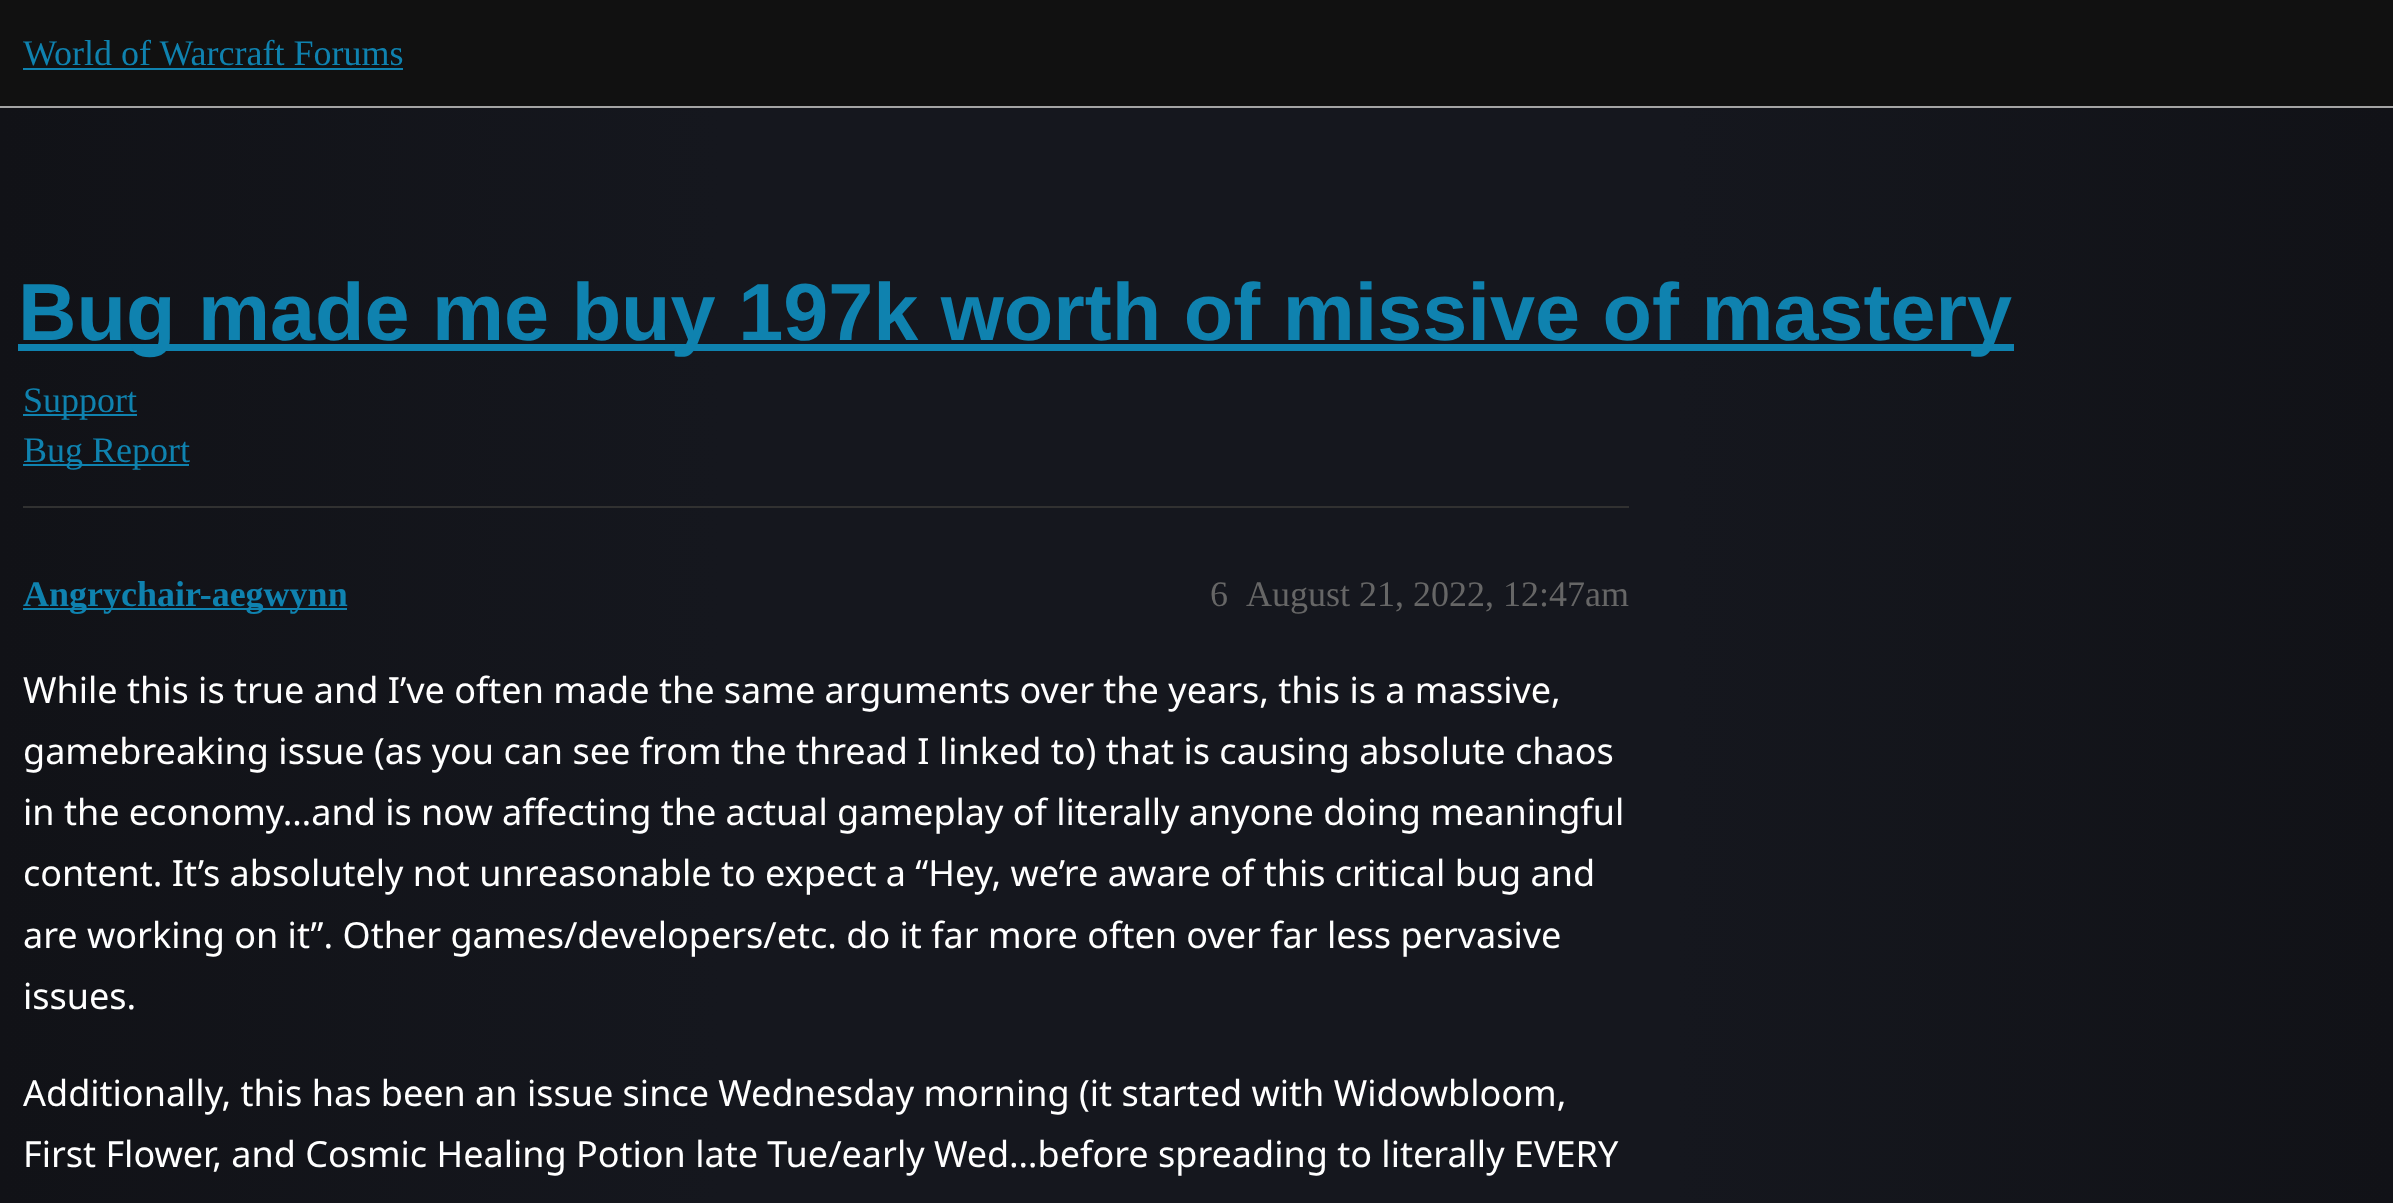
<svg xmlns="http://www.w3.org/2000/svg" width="2393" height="1203">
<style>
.a{font:36px Liberation Serif;fill:#0f82af}
.b{font:bold 81px Liberation Sans;fill:#0f82af}
.c{font:bold 36px Liberation Serif;fill:#0f82af}
.d{font:36px Liberation Serif;fill:#666}
.e{font:36px Noto Sans;fill:#fff}
</style>
<defs>
<linearGradient id="g1" gradientUnits="userSpaceOnUse" x1="0" y1="1106" x2="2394" y2="1106"><stop offset="0" stop-color="#111217"/><stop offset="0.3" stop-color="#15171e"/><stop offset="0.7" stop-color="#15171e"/><stop offset="1" stop-color="#111217"/></linearGradient>
</defs>
<rect width="100%" height="100%" fill="#fff"/>
<path fill="url(#g1)" d="M0 108h2393v1095H0z"/>
<path fill="#111" d="M0 0h2393v106H0z"/>
<path fill="#a4a4a4" d="M0 106h2393v2H0z"/>
<path fill="#0f82af" d="M23 68h380v2H23z"/>
<path fill="#0f82af" d="M18 344h1996v7H18z"/>
<path fill="#0f82af" d="M23 414h114v2H23z"/>
<path fill="#0f82af" d="M23 464h166v2H23z"/>
<path fill="#313131" d="M23 506h1606v2H23z"/>
<path fill="#0f82af" d="M23 608h324v2H23z"/>
<text class="a" x="23" y="65">World of Warcraft Forums</text>
<text class="b" x="18" y="340">Bug made me buy 197k worth of missive of mastery</text>
<text class="a" x="23" y="412">Support</text>
<text class="a" x="23" y="462">Bug Report</text>
<text class="c" x="23" y="606">Angrychair-aegwynn</text>
<text class="d" x="1210" y="606">6</text>
<text class="d" x="1246" y="606">August 21, 2022, 12:47am</text>
<text class="e" x="23" y="703">While this is true and I’ve often made the same arguments over the years, this is a massive,</text>
<text class="e" x="23" y="764">gamebreaking issue (as you can see from the thread I linked to) that is causing absolute chaos</text>
<text class="e" x="23" y="825">in the economy…and is now affecting the actual gameplay of literally anyone doing meaningful</text>
<text class="e" x="23" y="886">content. It’s absolutely not unreasonable to expect a “Hey, we’re aware of this critical bug and</text>
<text class="e" x="23" y="948">are working on it”. Other games/developers/etc. do it far more often over far less pervasive</text>
<text class="e" x="23" y="1009">issues.</text>
<text class="e" x="23" y="1106">Additionally, this has been an issue since Wednesday morning (it started with Widowbloom,</text>
<text class="e" x="23" y="1167">First Flower, and Cosmic Healing Potion late Tue/early Wed…before spreading to literally EVERY</text>
</svg>
